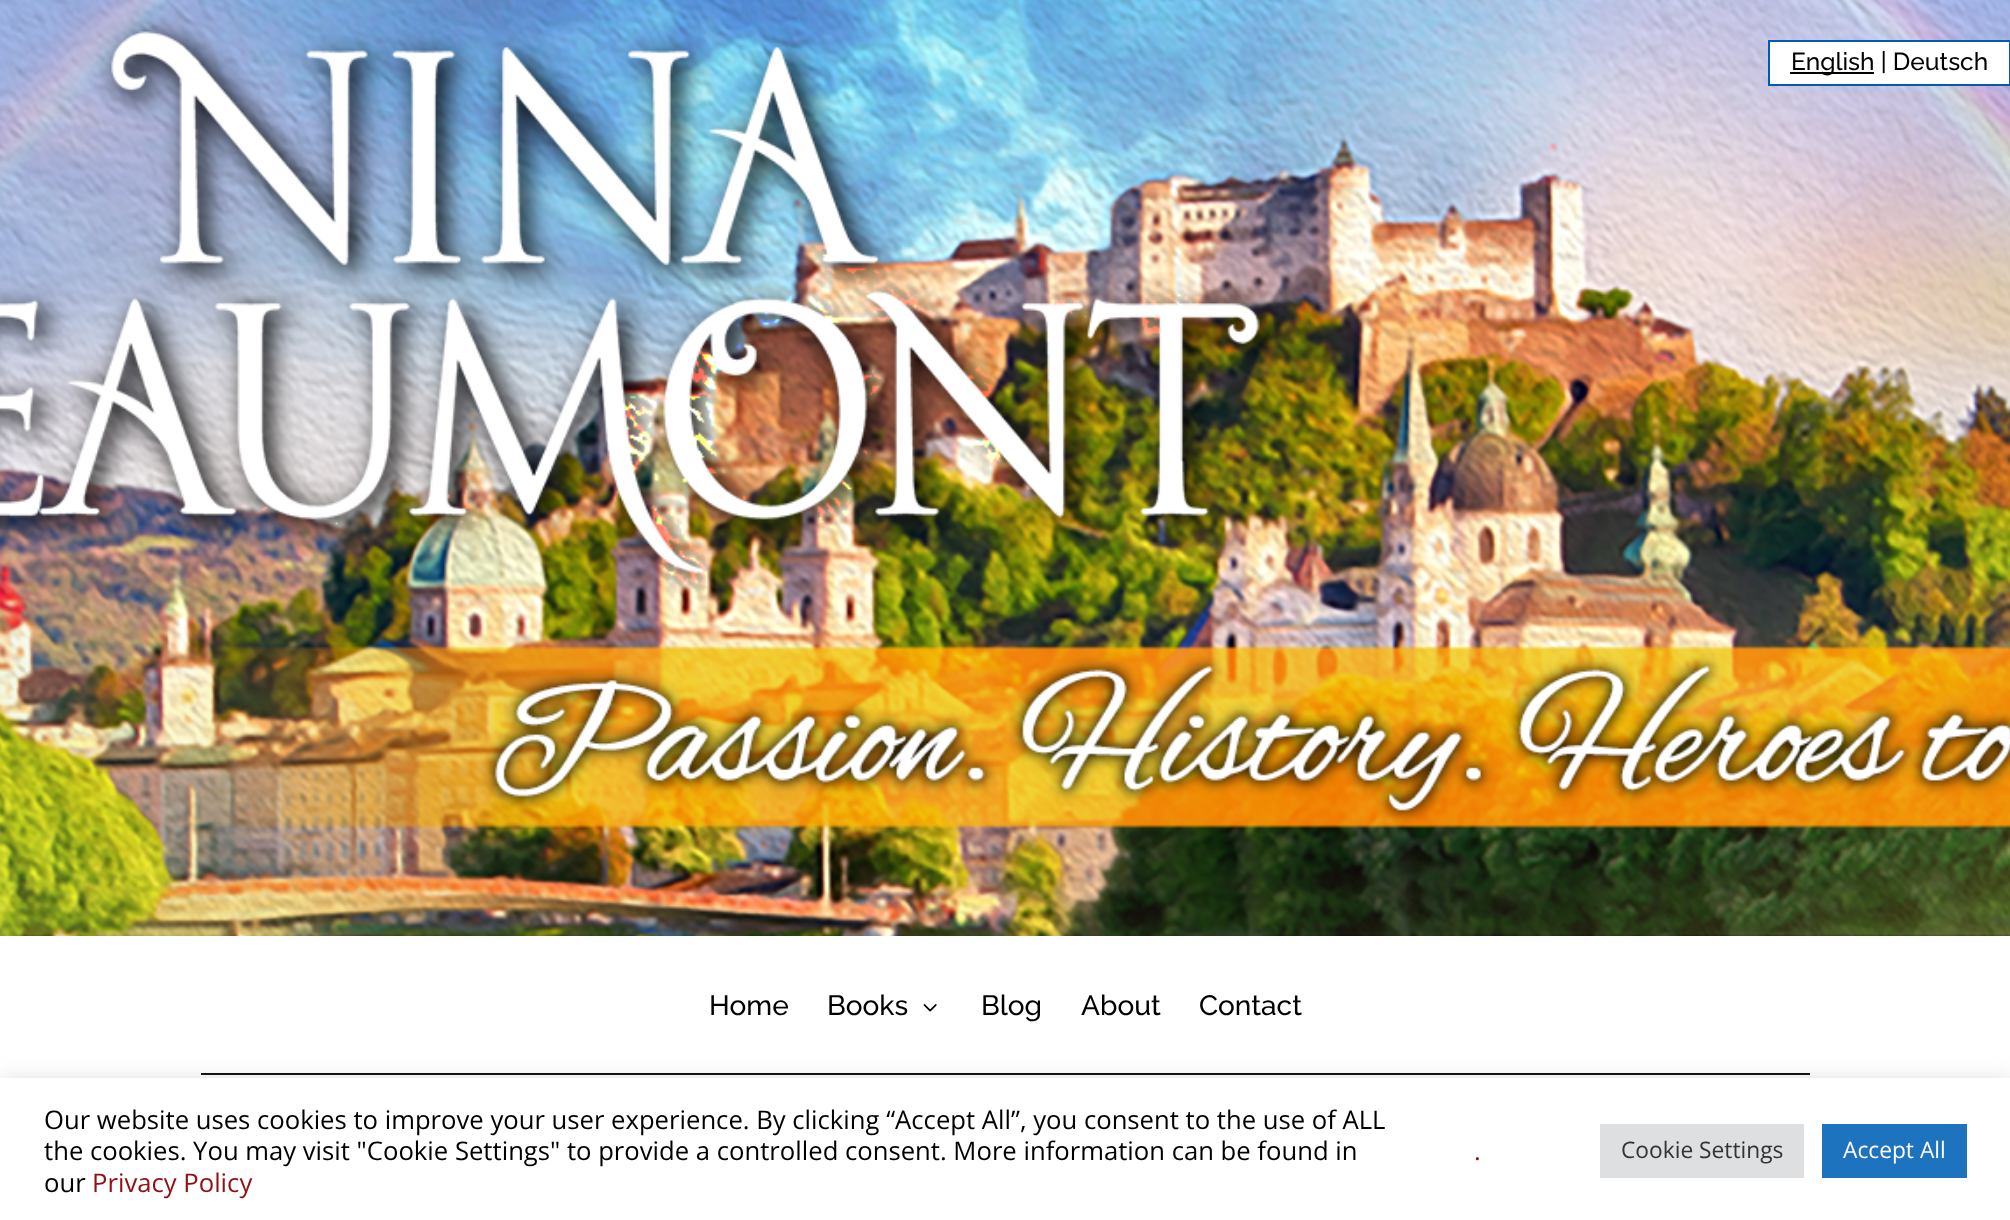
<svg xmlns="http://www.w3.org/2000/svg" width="2010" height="1220">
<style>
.a{font:500 24.5px Raleway;fill:#000}
.b{font:500 28px Raleway;fill:#000}
.c{font:25.67px Open Sans;fill:#000}
.d{font:25.67px Open Sans;fill:#901014}
.e{font:22.75px Open Sans;fill:#333}
.f{font:22.75px Open Sans;fill:#fff}
</style>
<rect width="100%" height="100%" fill="#fff"/>
<image href="1.png" x="0" y="0" width="2010" height="936"/>
<path fill="#fff" stroke="#035ab2" stroke-width="2" d="M1769 41h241v44H1769z"/>
<path fill="#000" d="M1790 72h84v2H1790z"/>
<image href="2.png" x="923" y="1004" width="14" height="8"/>
<path fill="#000" d="M201 1073h1609v2H201z"/>
<path fill="#acabab4d" filter="blur(9px)" d="M0 1076h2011v144H0z"/>
<path fill="#fff" d="M0 1078h2010v142H0z"/>
<path fill="#dedfe0" d="M1600 1124h204v54H1600z"/>
<path fill="#1e73be" d="M1822 1124h145v54H1822z"/>
<text class="a" x="1791" y="70">English | Deutsch</text>
<text class="b" x="709" y="1015">Home</text>
<text class="b" x="827" y="1015">Books</text>
<text class="b" x="981" y="1015">Blog</text>
<text class="b" x="1081" y="1015">About</text>
<text class="b" x="1199" y="1015">Contact</text>
<text class="c" x="44" y="1129">Our website uses cookies to improve your user experience. By clicking “Accept All”, you consent to the use of ALL</text>
<text class="c" x="44" y="1160">the cookies. You may visit "Cookie Settings" to provide a controlled consent. More information can be found in</text>
<text class="c" x="44" y="1192">our</text>
<text class="d" x="92" y="1192">Privacy Policy</text>
<text class="d" x="1474" y="1160">.</text>
<text class="e" x="1621" y="1158">Cookie Settings</text>
<text class="f" x="1843" y="1158">Accept All</text>
</svg>
